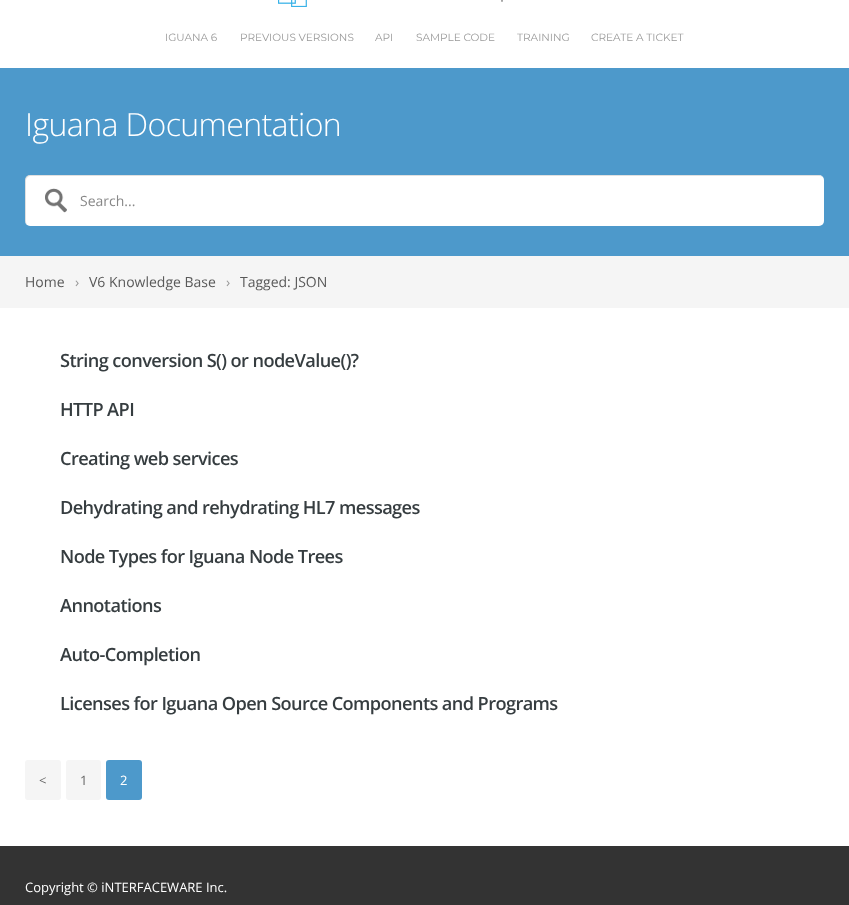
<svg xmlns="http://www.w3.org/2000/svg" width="849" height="905">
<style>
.a{font:10.5px Montserrat;fill:#999}
.b{font:300 32px Open Sans;letter-spacing:-0.6px;fill:#fff}
.c{font:14px Open Sans;fill:#888}
.d{font:14px Open Sans;fill:#595959}
.e{font:14px Open Sans;fill:#999}
.f{font:600 18.2px Open Sans;letter-spacing:-0.6px;fill:#363d40}
.g{font:13px Open Sans;fill:#666}
.h{font:13px Open Sans;fill:#fff}
</style>
<rect width="100%" height="100%" fill="#fff"/>
<image href="1.png" x="278" y="0" width="225" height="7"/>
<path fill="#4d99cb" d="M0 68h849v188H0z"/>
<rect fill="#fff" x="25" y="175" width="799" height="51" rx="5"/>
<image href="2.png" x="45" y="188" width="22" height="25"/>
<path fill="#0000001f" d="M31 176h789l3 1c-1-1-3-2-4-2h-789c-3 0-5 2-5 5v41c0 1 1 3 2 4l-1-3v-41c0-3 2-5 5-5z"/>
<path fill="#f5f5f5" d="M0 256h849v52H0z"/>
<rect fill="#f5f5f5" x="25" y="760" width="36" height="40" rx="3"/>
<rect fill="#f5f5f5" x="66" y="760" width="35" height="40" rx="3"/>
<rect fill="#4d99cb" x="106" y="760" width="36" height="40" rx="3"/>
<path fill="#333" d="M0 846h849v59H0z"/>
<text class="a" x="165" y="41">IGUANA 6</text>
<text class="a" x="240" y="41">PREVIOUS VERSIONS</text>
<text class="a" x="375" y="41">API</text>
<text class="a" x="416" y="41">SAMPLE CODE</text>
<text class="a" x="517" y="41">TRAINING</text>
<text class="a" x="591" y="41">CREATE A TICKET</text>
<text class="b" x="25" y="136">Iguana Documentation</text>
<text class="c" x="80" y="206">Search...</text>
<text class="d" x="25" y="287">Home</text>
<text class="e" x="75" y="287">›</text>
<text class="d" x="89" y="287">V6 Knowledge Base</text>
<text class="e" x="226" y="287">›</text>
<text class="d" x="240" y="287">Tagged: JSON</text>
<text class="f" x="60" y="367">String conversion S() or nodeValue()?</text>
<text class="f" x="60" y="416">HTTP API</text>
<text class="f" x="60" y="465">Creating web services</text>
<text class="f" x="60" y="514">Dehydrating and rehydrating HL7 messages</text>
<text class="f" x="60" y="563">Node Types for Iguana Node Trees</text>
<text class="f" x="60" y="612">Annotations</text>
<text class="f" x="60" y="661">Auto-Completion</text>
<text class="f" x="60" y="710">Licenses for Iguana Open Source Components and Programs</text>
<text class="g" x="39" y="785">&lt;</text>
<text class="g" x="80" y="785">1</text>
<text class="h" x="120" y="785">2</text>
<text class="h" x="25" y="892">Copyright © iNTERFACEWARE Inc.</text>
</svg>
